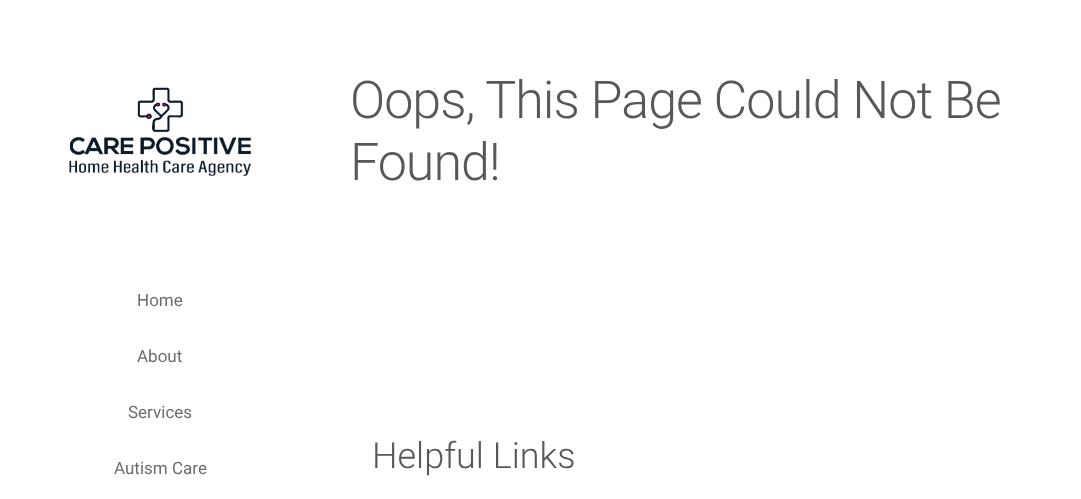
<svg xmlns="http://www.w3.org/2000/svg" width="1081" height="499">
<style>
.a{font:17px Roboto;fill:#6d6d6d}
.b{font:300 52px Roboto;letter-spacing:-1px;fill:#56585a}
.c{font:300 36px Roboto;fill:#56585a}
</style>
<rect width="100%" height="100%" fill="#fff"/>
<image href="1.png" x="69" y="87" width="183" height="89"/>
<text class="a" x="137" y="306">Home</text>
<text class="a" x="137" y="362">About</text>
<text class="a" x="128" y="418">Services</text>
<text class="a" x="114" y="474">Autism Care</text>
<text class="b" x="350" y="118">Oops, This Page Could Not Be</text>
<text class="b" x="350" y="180">Found!</text>
<text class="c" x="372" y="468">Helpful Links</text>
</svg>
